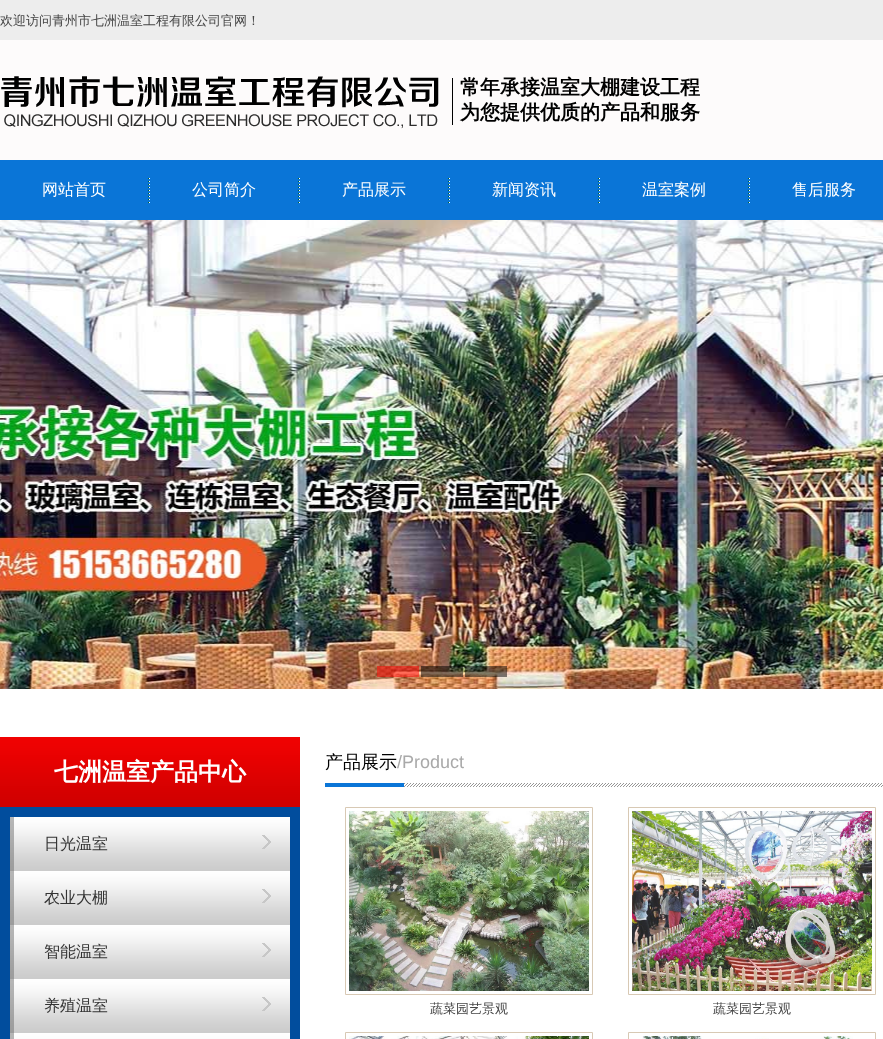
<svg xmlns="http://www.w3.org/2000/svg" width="883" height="1039">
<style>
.a{font:500 13px WenQuanYi Zen Hei;fill:#464646}
.b{font:bold 20px WenQuanYi Zen Hei;fill:#000}
.c{font:500 16px WenQuanYi Zen Hei;fill:#fff}
.d{font:bold 24px WenQuanYi Zen Hei;fill:#fff}
.e{font:500 16px WenQuanYi Zen Hei;fill:#333}
.f{font:500 18px WenQuanYi Zen Hei;fill:#000}
.g{font:18px Liberation Sans;fill:#a9a9a9}
</style>
<rect width="100%" height="100%" fill="#fff"/>
<path fill="#ededed" d="M0 0h883v40H0z"/>
<path fill="#fdfbfb" d="M0 40h883v120H0z"/>
<image href="1.png" x="1" y="76" width="452" height="53"/>
<path fill="#0a75d7" d="M0 160h883v60H0z"/>
<image href="2.png" x="148" y="178" width="2" height="25"/>
<image href="2.png" x="298" y="178" width="2" height="25"/>
<image href="2.png" x="448" y="178" width="2" height="25"/>
<image href="2.png" x="598" y="178" width="2" height="25"/>
<image href="2.png" x="748" y="178" width="2" height="25"/>
<image href="3.png" x="0" y="220" width="883" height="469"/>
<path fill="#014d9d" d="M0 807h300v232H0z"/>
<image href="4.png" x="0" y="737" width="300" height="70"/>
<image href="5.png" x="10" y="817" width="280" height="54"/>
<image href="5.png" x="10" y="871" width="280" height="54"/>
<image href="5.png" x="10" y="925" width="280" height="54"/>
<image href="5.png" x="10" y="979" width="280" height="54"/>
<image href="6.png" x="10" y="1033" width="280" height="6"/>
<image href="7.png" x="325" y="783" width="558" height="4"/>
<path fill="none" stroke="#d8c9b4" d="M345.5 807.5h247v187H345.5z"/>
<image href="8.png" x="349" y="811" width="240" height="180"/>
<path fill="none" stroke="#d8c9b4" d="M628.5 807.5h247v187H628.5z"/>
<image href="9.png" x="632" y="811" width="240" height="180"/>
<path fill="none" stroke="#d8c9b4" d="M345.5 1032.5h247v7H345.5z"/>
<image href="10.png" x="349" y="1036" width="240" height="3"/>
<path fill="none" stroke="#d8c9b4" d="M628.5 1032.5h247v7H628.5z"/>
<image href="11.png" x="642" y="1036" width="211" height="3"/>
<text class="a" x="0" y="25">欢迎访问青州市七洲温室工程有限公司官网！</text>
<text class="b" x="460" y="94">常年承接温室大棚建设工程</text>
<text class="b" x="460" y="119">为您提供优质的产品和服务</text>
<text class="c" x="42" y="195">网站首页</text>
<text class="c" x="192" y="195">公司简介</text>
<text class="c" x="342" y="195">产品展示</text>
<text class="c" x="492" y="195">新闻资讯</text>
<text class="c" x="642" y="195">温室案例</text>
<text class="c" x="792" y="195">售后服务</text>
<text class="d" x="54" y="780">七洲温室产品中心</text>
<text class="e" x="44" y="849">日光温室</text>
<text class="e" x="44" y="903">农业大棚</text>
<text class="e" x="44" y="957">智能温室</text>
<text class="e" x="44" y="1011">养殖温室</text>
<text class="f" x="325" y="768">产品展示</text>
<text class="g" x="397" y="768">/Product</text>
<text class="a" x="430" y="1013">蔬菜园艺景观</text>
<text class="a" x="713" y="1013">蔬菜园艺景观</text>
</svg>
